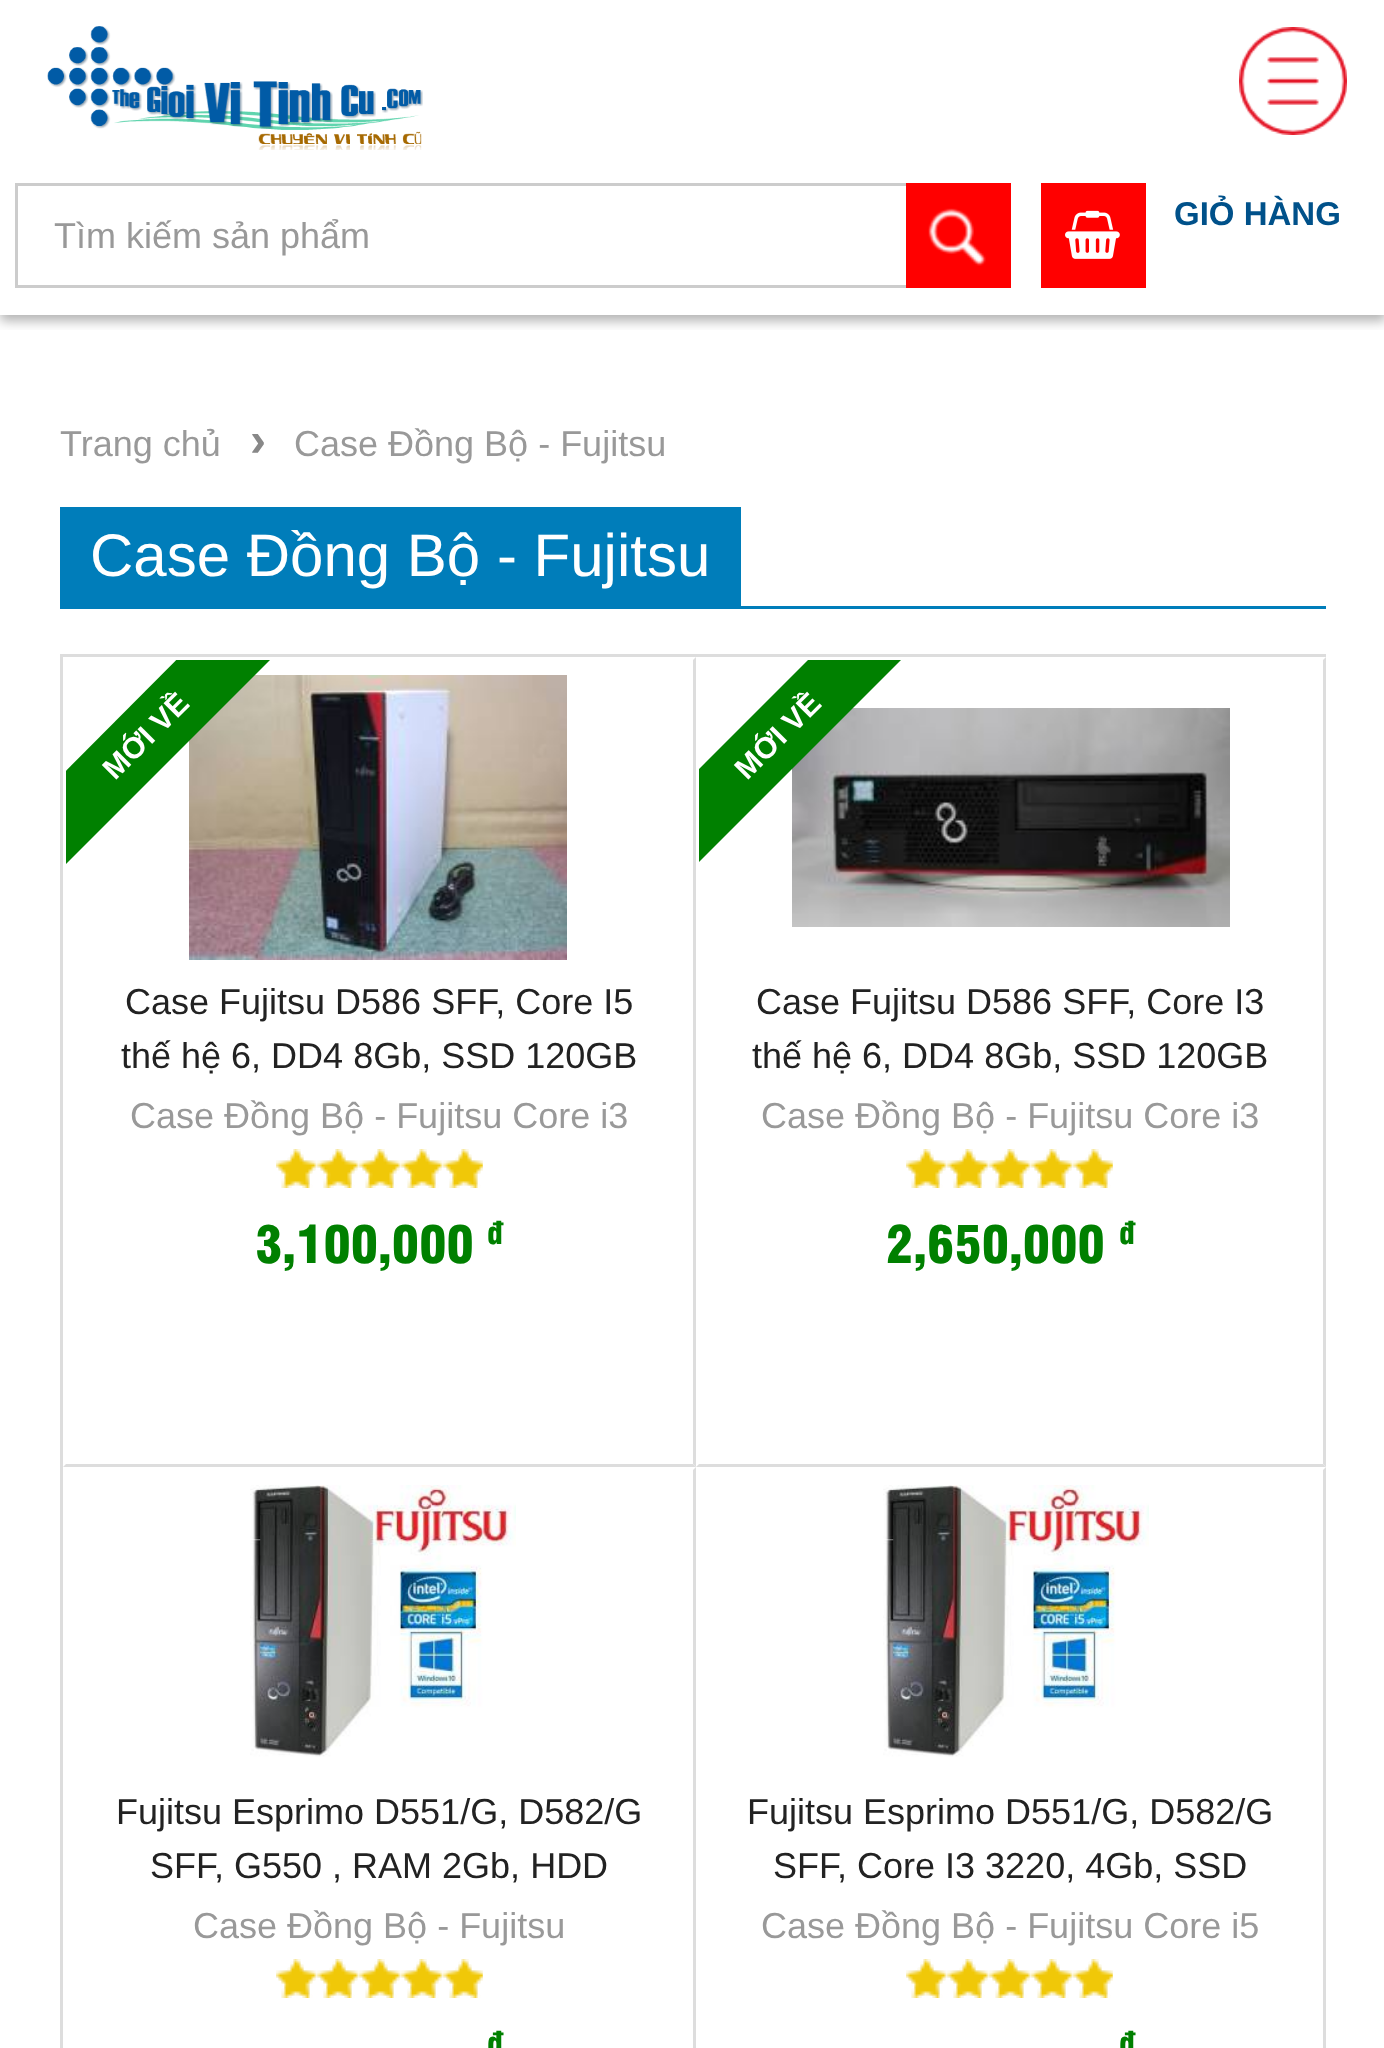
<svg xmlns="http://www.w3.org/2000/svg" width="1384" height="2048">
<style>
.a{font:bold 33px Liberation Sans;fill:#00518a}
.b{font:36px Liberation Sans;fill:#999}
.c{font:bold 48px Liberation Sans;fill:#888}
.d{font:60px Liberation Sans;fill:#fff}
.e{font:bold 30px Liberation Sans;fill:#fff}
.f{font:36px Liberation Sans;fill:#222}
.g{font:900 51px 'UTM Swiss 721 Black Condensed';fill:#008000}
.h{font:900 31px 'UTM Swiss 721 Black Condensed';fill:#008000}
</style>
<defs>
<clipPath id="clip1"><path d="M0 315h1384v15H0z"/></clipPath>
<clipPath id="clip2"><path d="M66 660h627v315H66z"/></clipPath>
<clipPath id="clip3"><path d="M699 660h624v315H699z"/></clipPath>
</defs>
<rect width="100%" height="100%" fill="#fff"/>
<g clip-path="url(#clip1)">
<path fill="#0000004d" filter="blur(6px)" d="M0 6h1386v315H0z"/>
</g>
<image href="1.png" x="47" y="26" width="376" height="124"/>
<image href="2.png" x="1239" y="27" width="108" height="108"/>
<path fill="#f00" d="M1041 183h105v105H1041z"/>
<image href="3.png" x="1065" y="210" width="55" height="49"/>
<path fill="none" stroke="#ccc" stroke-width="3" d="M16.5 184.5h993v102H16.5z"/>
<path fill="#f00" d="M906 183h105v3H906z"/>
<path fill="#f00" d="M1008 183h3v105H1008z"/>
<path fill="#f00" d="M906 285h105v3H906z"/>
<path fill="#f00" d="M906 186h102v99H906z"/>
<image href="4.png" x="928" y="208" width="58" height="58"/>
<path fill="#007dba" d="M60 606h1266v3H60z"/>
<path fill="#007dba" d="M60 507h681v99H60z"/>
<path fill="#ddd" d="M60 654h1266v3H60z"/>
<path fill="#ddd" d="M60 654h3v1394H60z"/>
<path fill="#ddd" d="M696 657v810l-3-3v-804z"/>
<path fill="#ddd" d="M696 1467h-633l3-3h627z"/>
<image href="5.png" x="189" y="675" width="378" height="285"/>
<g clip-path="url(#clip2)">
<path fill="#008000" d="M287 643l-233 233l-47-46l233-234z"/>
</g>
<image href="6.png" x="276" y="1149" width="207" height="39"/>
<image href="7.png" x="276" y="1149" width="207" height="39"/>
<path fill="#ddd" d="M1326 657v810l-3-3v-804z"/>
<path fill="#ddd" d="M1326 1467h-630l3-3h624z"/>
<image href="8.png" x="792" y="708" width="438" height="219"/>
<g clip-path="url(#clip3)">
<path fill="#008000" d="M638 830l234-234l46 47l-233 233l-16-16z"/>
</g>
<image href="6.png" x="906" y="1149" width="207" height="39"/>
<image href="7.png" x="906" y="1149" width="207" height="39"/>
<path fill="#ddd" d="M696 1467v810l-3-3v-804z"/>
<image href="9.png" x="250" y="1485" width="266" height="272"/>
<image href="6.png" x="276" y="1959" width="207" height="39"/>
<image href="7.png" x="276" y="1959" width="207" height="39"/>
<path fill="#ddd" d="M1326 1467v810l-3-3v-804z"/>
<image href="10.png" x="883" y="1485" width="266" height="272"/>
<image href="6.png" x="906" y="1959" width="207" height="39"/>
<image href="7.png" x="906" y="1959" width="207" height="39"/>
<text class="a" x="1174" y="225">GIỎ HÀNG</text>
<text class="b" x="54" y="248">Tìm kiếm sản phẩm</text>
<text class="b" x="60" y="456">Trang chủ</text>
<text class="c" x="250" y="456">›</text>
<text class="b" x="294" y="456">Case Đồng Bộ - Fujitsu</text>
<text class="d" x="90" y="576">Case Đồng Bộ - Fujitsu</text>
<text class="e" x="115" y="781" transform="rotate(-45 115 781)">MỚI VỀ</text>
<text class="f" x="125" y="1014">Case Fujitsu D586 SFF, Core I5</text>
<text class="f" x="121" y="1068">thế hệ 6, DD4 8Gb, SSD 120GB</text>
<text class="b" x="130" y="1128">Case Đồng Bộ - Fujitsu Core i3</text>
<text class="g" x="255" y="1263">3,100,000</text>
<text class="h" x="487" y="1244">đ</text>
<text class="e" x="747" y="781" transform="rotate(-45 747 781)">MỚI VỀ</text>
<text class="f" x="756" y="1014">Case Fujitsu D586 SFF, Core I3</text>
<text class="f" x="752" y="1068">thế hệ 6, DD4 8Gb, SSD 120GB</text>
<text class="b" x="761" y="1128">Case Đồng Bộ - Fujitsu Core i3</text>
<text class="g" x="886" y="1263">2,650,000</text>
<text class="h" x="1119" y="1244">đ</text>
<text class="f" x="116" y="1824">Fujitsu Esprimo D551/G, D582/G</text>
<text class="f" x="150" y="1878">SFF, G550 , RAM 2Gb, HDD</text>
<text class="b" x="193" y="1938">Case Đồng Bộ - Fujitsu</text>
<text class="h" x="487" y="2054">đ</text>
<text class="f" x="747" y="1824">Fujitsu Esprimo D551/G, D582/G</text>
<text class="f" x="773" y="1878">SFF, Core I3 3220, 4Gb, SSD</text>
<text class="b" x="761" y="1938">Case Đồng Bộ - Fujitsu Core i5</text>
<text class="h" x="1119" y="2054">đ</text>
</svg>
